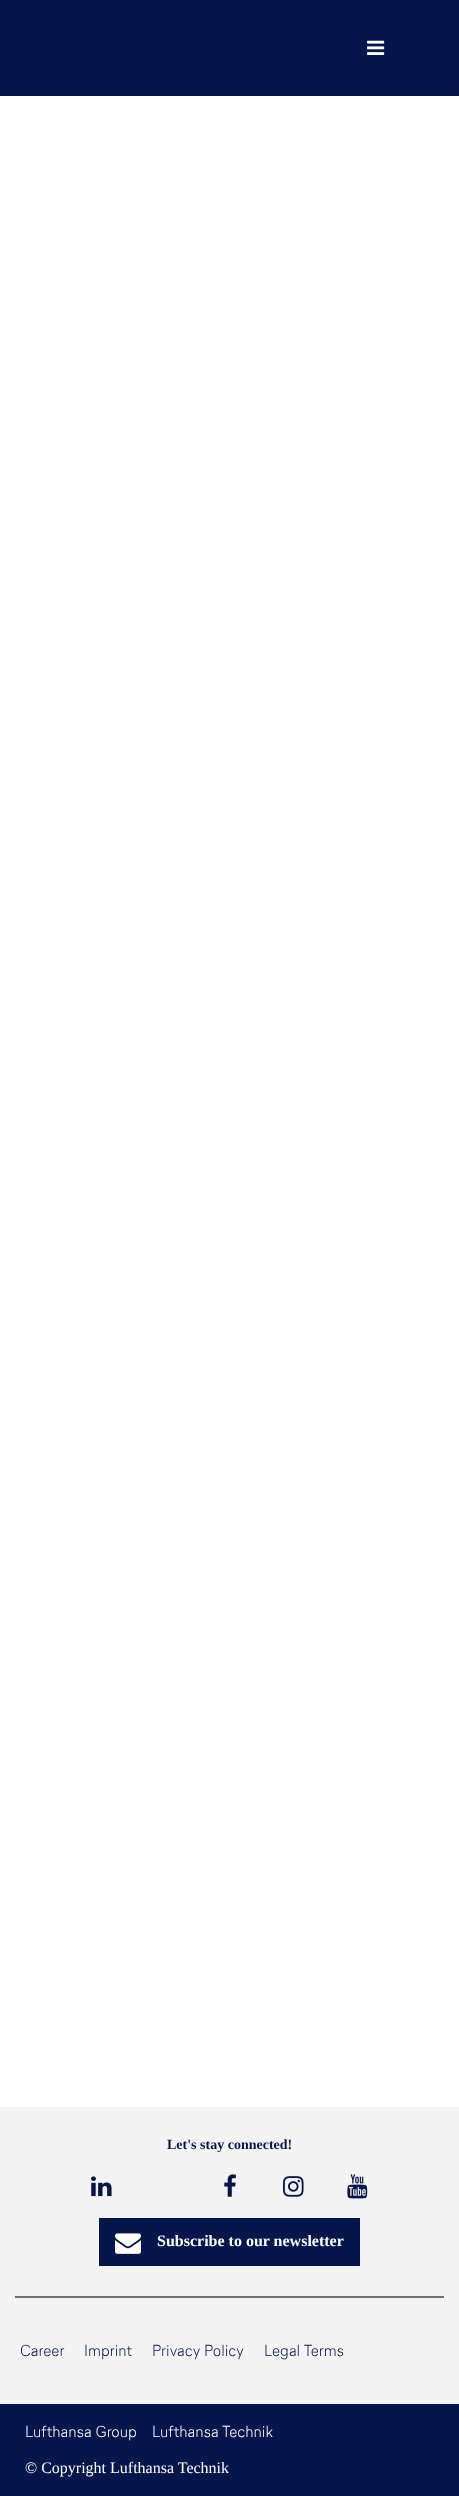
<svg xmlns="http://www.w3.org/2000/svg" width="459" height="2496">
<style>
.a{font:bold 14px Liberation Serif;fill:#05164d}
.b{font:bold 16px Liberation Serif;fill:#fff}
.c{font:300 16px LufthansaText;fill:#05164d}
.d{font:300 16px LufthansaText;fill:#fff}
.e{font:16px Liberation Serif;fill:#fff}
</style>
<rect width="100%" height="100%" fill="#fff"/>
<path fill="#05164d" d="M0 0h459v96H0z"/>
<image href="1.png" x="367" y="40" width="18" height="15"/>
<path fill="#f4f4f4" d="M0 2107h459v297H0z"/>
<image href="2.png" x="91" y="2176" width="21" height="21"/>
<image href="3.png" x="224" y="2174" width="12" height="23"/>
<image href="4.png" x="283" y="2176" width="21" height="21"/>
<image href="5.png" x="347" y="2174" width="21" height="25"/>
<path fill="#05164d" d="M99 2218h261v48H99z"/>
<image href="6.png" x="115" y="2233" width="26" height="21"/>
<path fill="#707070" d="M15 2296h429v2H15z"/>
<path fill="#05164d" d="M0 2404h459v92H0z"/>
<text class="a" x="167" y="2149">Let's stay connected!</text>
<text class="b" x="157" y="2246">Subscribe to our newsletter</text>
<text class="c" x="20" y="2356">Career</text>
<text class="c" x="84" y="2356">Imprint</text>
<text class="c" x="152" y="2356">Privacy Policy</text>
<text class="c" x="264" y="2356">Legal Terms</text>
<text class="d" x="25" y="2437">Lufthansa Group</text>
<text class="d" x="152" y="2437">Lufthansa Technik</text>
<text class="e" x="25" y="2473">© Copyright Lufthansa Technik</text>
</svg>
